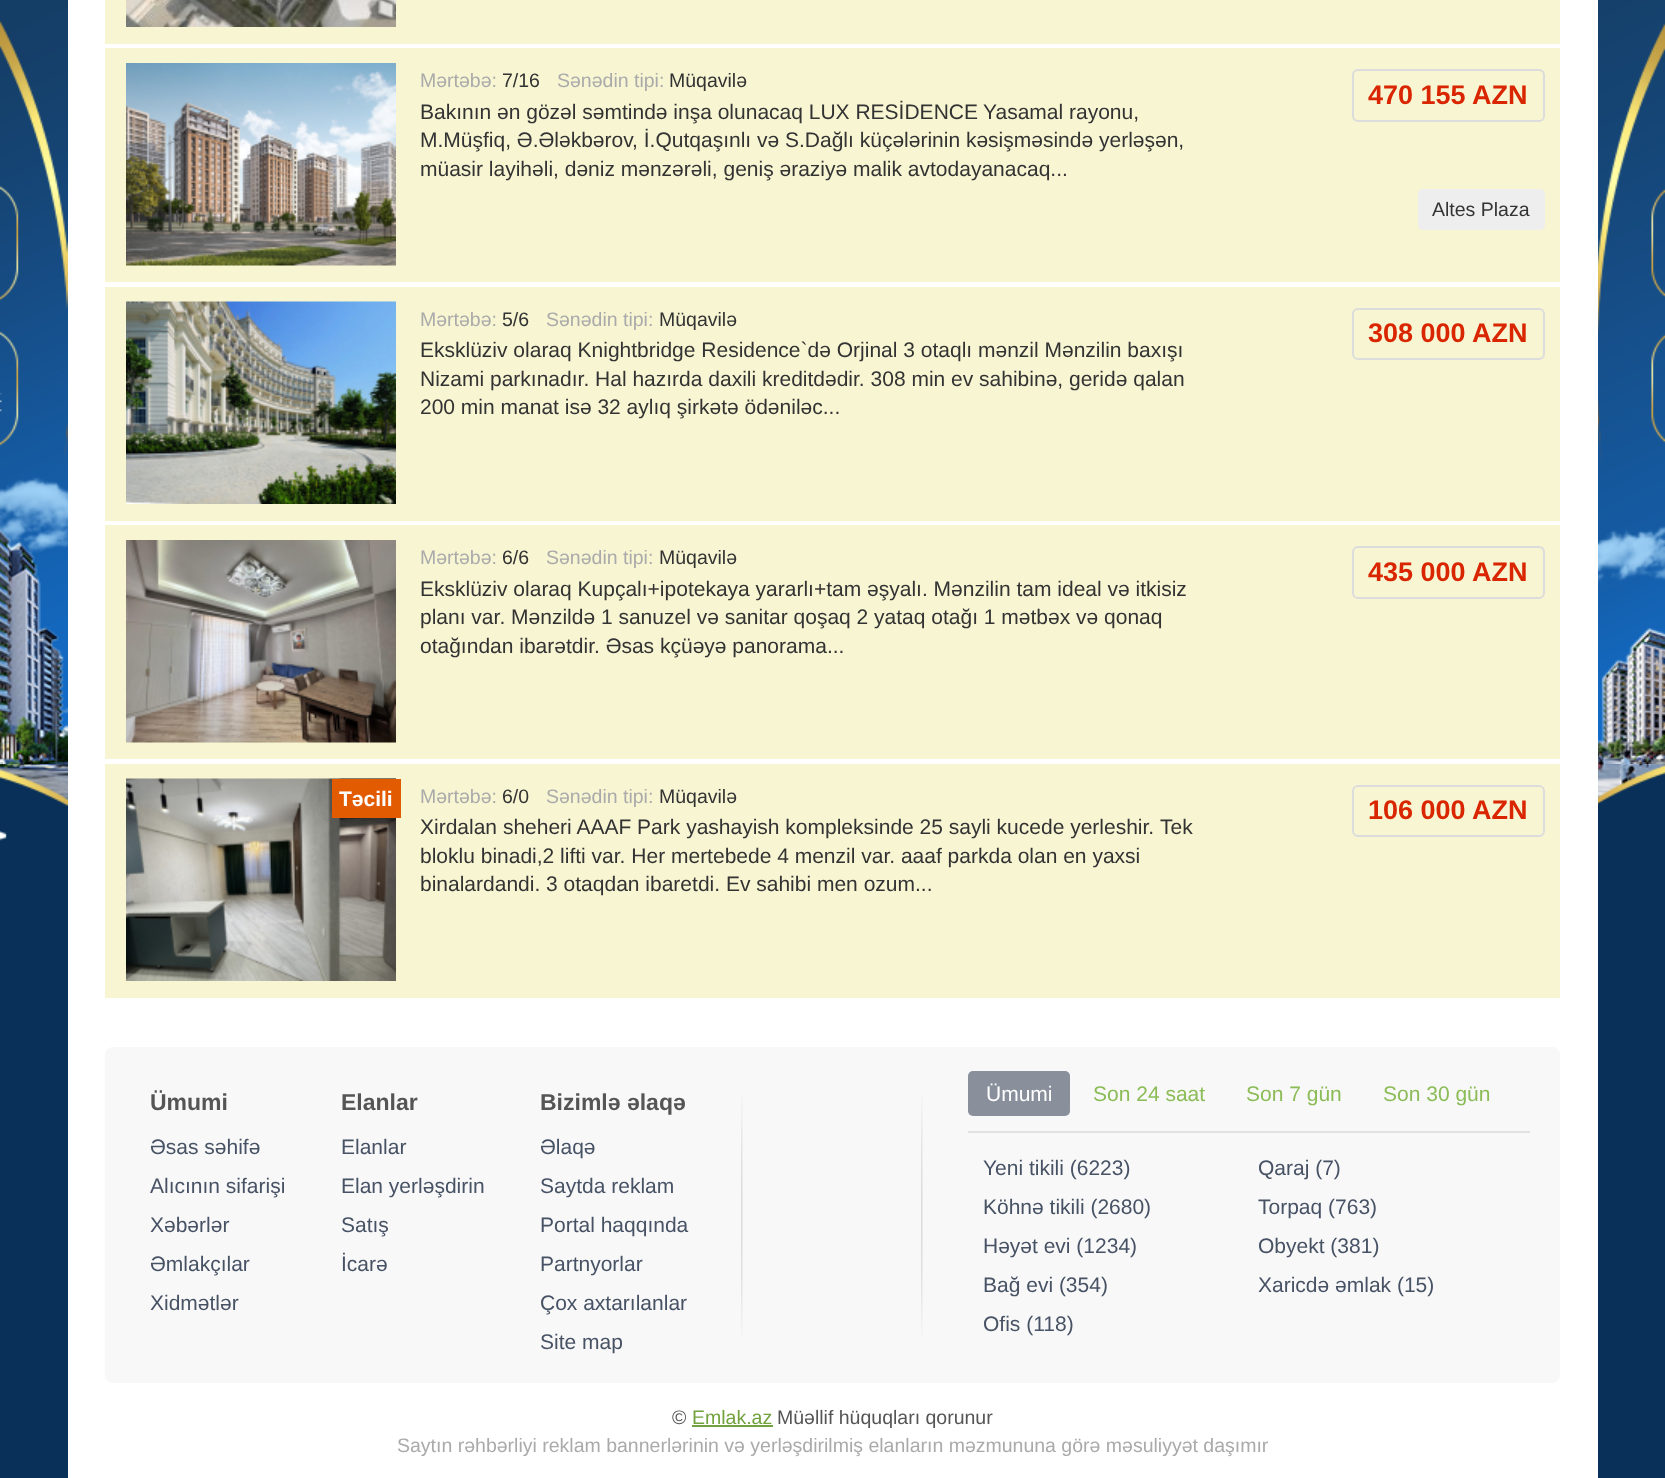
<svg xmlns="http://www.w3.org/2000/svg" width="1665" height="1478">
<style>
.a{font:19.5px Liberation Sans;fill:#aaa}
.b{font:19.5px Liberation Sans;fill:#333}
.c{font:21px Liberation Sans;fill:#333}
.d{font:bold 27px Liberation Sans;fill:#d92500}
.e{font:bold 21px Liberation Sans;fill:#fff}
.f{font:bold 23px Liberation Sans;fill:#555}
.g{font:21px Liberation Sans;fill:#475265}
.h{font:21px Liberation Sans;fill:#fff}
.i{font:21px Liberation Sans;fill:#8bbc57}
.j{font:19.5px Liberation Sans;fill:#555}
.k{font:19.5px Liberation Sans;fill:#72a23e}
</style>
<rect width="100%" height="100%" fill="#fff"/>
<image href="1.png" x="0" y="0" width="68" height="1478"/>
<path fill="#f7f5d2" d="M105 0h1455v44H105z"/>
<image href="2.png" x="126" y="0" width="270" height="27"/>
<path fill="#f7f5d2" d="M105 48h1455v234H105z"/>
<image href="3.png" x="126" y="63" width="270" height="203"/>
<rect fill="none" stroke="#dcdcdc" stroke-width="2" x="1353" y="70" width="191" height="51" rx="5"/>
<rect fill="#eee" x="1418" y="189" width="127" height="41" rx="5"/>
<path fill="#f7f5d2" d="M105 287h1455v234H105z"/>
<image href="4.png" x="126" y="301" width="270" height="203"/>
<rect fill="none" stroke="#dcdcdc" stroke-width="2" x="1353" y="309" width="191" height="50" rx="5"/>
<path fill="#f7f5d2" d="M105 525h1455v234H105z"/>
<image href="5.png" x="126" y="540" width="270" height="203"/>
<rect fill="none" stroke="#dcdcdc" stroke-width="2" x="1353" y="547" width="191" height="51" rx="5"/>
<path fill="#f7f5d2" d="M105 764h1455v234H105z"/>
<image href="6.png" x="126" y="778" width="270" height="203"/>
<path fill="#e35b00" d="M332 779h69v39H332z"/>
<rect fill="none" stroke="#dcdcdc" stroke-width="2" x="1353" y="786" width="191" height="50" rx="5"/>
<image href="7.png" x="1598" y="0" width="67" height="1478"/>
<rect fill="#f8f8f8" x="105" y="1047" width="1455" height="336" rx="8"/>
<image href="8.png" x="741" y="1095" width="182" height="241"/>
<path fill="#e2e2e2" d="M968 1131h562v2H968z"/>
<rect fill="#89909c" x="968" y="1071" width="102" height="45" rx="5"/>
<path fill="#72a23e" d="M692 1425h81v2H692z"/>
<text class="a" x="420" y="87">Mərtəbə:</text>
<text class="b" x="502" y="87">7/16</text>
<text class="a" x="557" y="87">Sənədin tipi:</text>
<text class="b" x="669" y="87">Müqavilə</text>
<text class="c" x="420" y="119">Bakının ən gözəl səmtində inşa olunacaq LUX RESİDENCE</text>
<text class="c" x="983" y="119">Yasamal rayonu,</text>
<text class="c" x="420" y="147">M.Müşfiq, Ə.Ələkbərov, İ.Qutqaşınlı və S.Dağlı küçələrinin kəsişməsində yerləşən,</text>
<text class="c" x="420" y="176">müasir layihəli, dəniz mənzərəli, geniş əraziyə malik avtodayanacaq...</text>
<text class="d" x="1368" y="104">470 155 AZN</text>
<text class="b" x="1432" y="216">Altes Plaza</text>
<text class="a" x="420" y="326">Mərtəbə:</text>
<text class="b" x="502" y="326">5/6</text>
<text class="a" x="546" y="326">Sənədin tipi:</text>
<text class="b" x="659" y="326">Müqavilə</text>
<text class="c" x="420" y="357">Eksklüziv olaraq Knightbridge Residence`də Orjinal 3 otaqlı mənzil Mənzilin baxışı</text>
<text class="c" x="420" y="386">Nizami parkınadır. Hal hazırda daxili kreditdədir. 308 min ev sahibinə, geridə qalan</text>
<text class="c" x="420" y="414">200 min manat isə 32 aylıq şirkətə ödəniləc...</text>
<text class="d" x="1368" y="342">308 000 AZN</text>
<text class="a" x="420" y="564">Mərtəbə:</text>
<text class="b" x="502" y="564">6/6</text>
<text class="a" x="546" y="564">Sənədin tipi:</text>
<text class="b" x="659" y="564">Müqavilə</text>
<text class="c" x="420" y="596">Eksklüziv olaraq Kupçalı+ipotekaya yararlı+tam əşyalı. Mənzilin tam ideal və itkisiz</text>
<text class="c" x="420" y="624">planı var. Mənzildə 1 sanuzel və sanitar qoşaq 2 yataq otağı 1 mətbəx və qonaq</text>
<text class="c" x="420" y="653">otağından ibarətdir. Əsas kçüəyə panorama...</text>
<text class="d" x="1368" y="581">435 000 AZN</text>
<text class="e" x="339" y="806">Təcili</text>
<text class="a" x="420" y="803">Mərtəbə:</text>
<text class="b" x="502" y="803">6/0</text>
<text class="a" x="546" y="803">Sənədin tipi:</text>
<text class="b" x="659" y="803">Müqavilə</text>
<text class="c" x="420" y="834">Xirdalan sheheri AAAF Park yashayish kompleksinde 25 sayli kucede yerleshir.</text>
<text class="c" x="1160" y="834">Tek</text>
<text class="c" x="420" y="863">bloklu binadi,2 lifti var. Her mertebede 4 menzil var. aaaf parkda olan en yaxsi</text>
<text class="c" x="420" y="891">binalardandi. 3 otaqdan ibaretdi. Ev sahibi men ozum...</text>
<text class="d" x="1368" y="819">106 000 AZN</text>
<text class="f" x="150" y="1110">Ümumi</text>
<text class="g" x="150" y="1154">Əsas səhifə</text>
<text class="g" x="150" y="1193">Alıcının sifarişi</text>
<text class="g" x="150" y="1232">Xəbərlər</text>
<text class="g" x="150" y="1271">Əmlakçılar</text>
<text class="g" x="150" y="1310">Xidmətlər</text>
<text class="f" x="341" y="1110">Elanlar</text>
<text class="g" x="341" y="1154">Elanlar</text>
<text class="g" x="341" y="1193">Elan yerləşdirin</text>
<text class="g" x="341" y="1232">Satış</text>
<text class="g" x="341" y="1271">İcarə</text>
<text class="f" x="540" y="1110">Bizimlə əlaqə</text>
<text class="g" x="540" y="1154">Əlaqə</text>
<text class="g" x="540" y="1193">Saytda reklam</text>
<text class="g" x="540" y="1232">Portal haqqında</text>
<text class="g" x="540" y="1271">Partnyorlar</text>
<text class="g" x="540" y="1310">Çox axtarılanlar</text>
<text class="g" x="540" y="1349">Site map</text>
<text class="h" x="986" y="1101">Ümumi</text>
<text class="i" x="1093" y="1101">Son 24 saat</text>
<text class="i" x="1246" y="1101">Son 7 gün</text>
<text class="i" x="1383" y="1101">Son 30 gün</text>
<text class="g" x="983" y="1175">Yeni tikili (6223)</text>
<text class="g" x="983" y="1214">Köhnə tikili (2680)</text>
<text class="g" x="983" y="1253">Həyət evi (1234)</text>
<text class="g" x="983" y="1292">Bağ evi (354)</text>
<text class="g" x="983" y="1331">Ofis (118)</text>
<text class="g" x="1258" y="1175">Qaraj (7)</text>
<text class="g" x="1258" y="1214">Torpaq (763)</text>
<text class="g" x="1258" y="1253">Obyekt (381)</text>
<text class="g" x="1258" y="1292">Xaricdə əmlak (15)</text>
<text class="j" x="672" y="1424">©</text>
<text class="k" x="692" y="1424">Emlak.az</text>
<text class="j" x="777" y="1424">Müəllif hüquqları qorunur</text>
<text class="a" x="397" y="1452">Saytın rəhbərliyi reklam bannerlərinin və yerləşdirilmiş elanların məzmununa görə məsuliyyət daşımır</text>
</svg>
